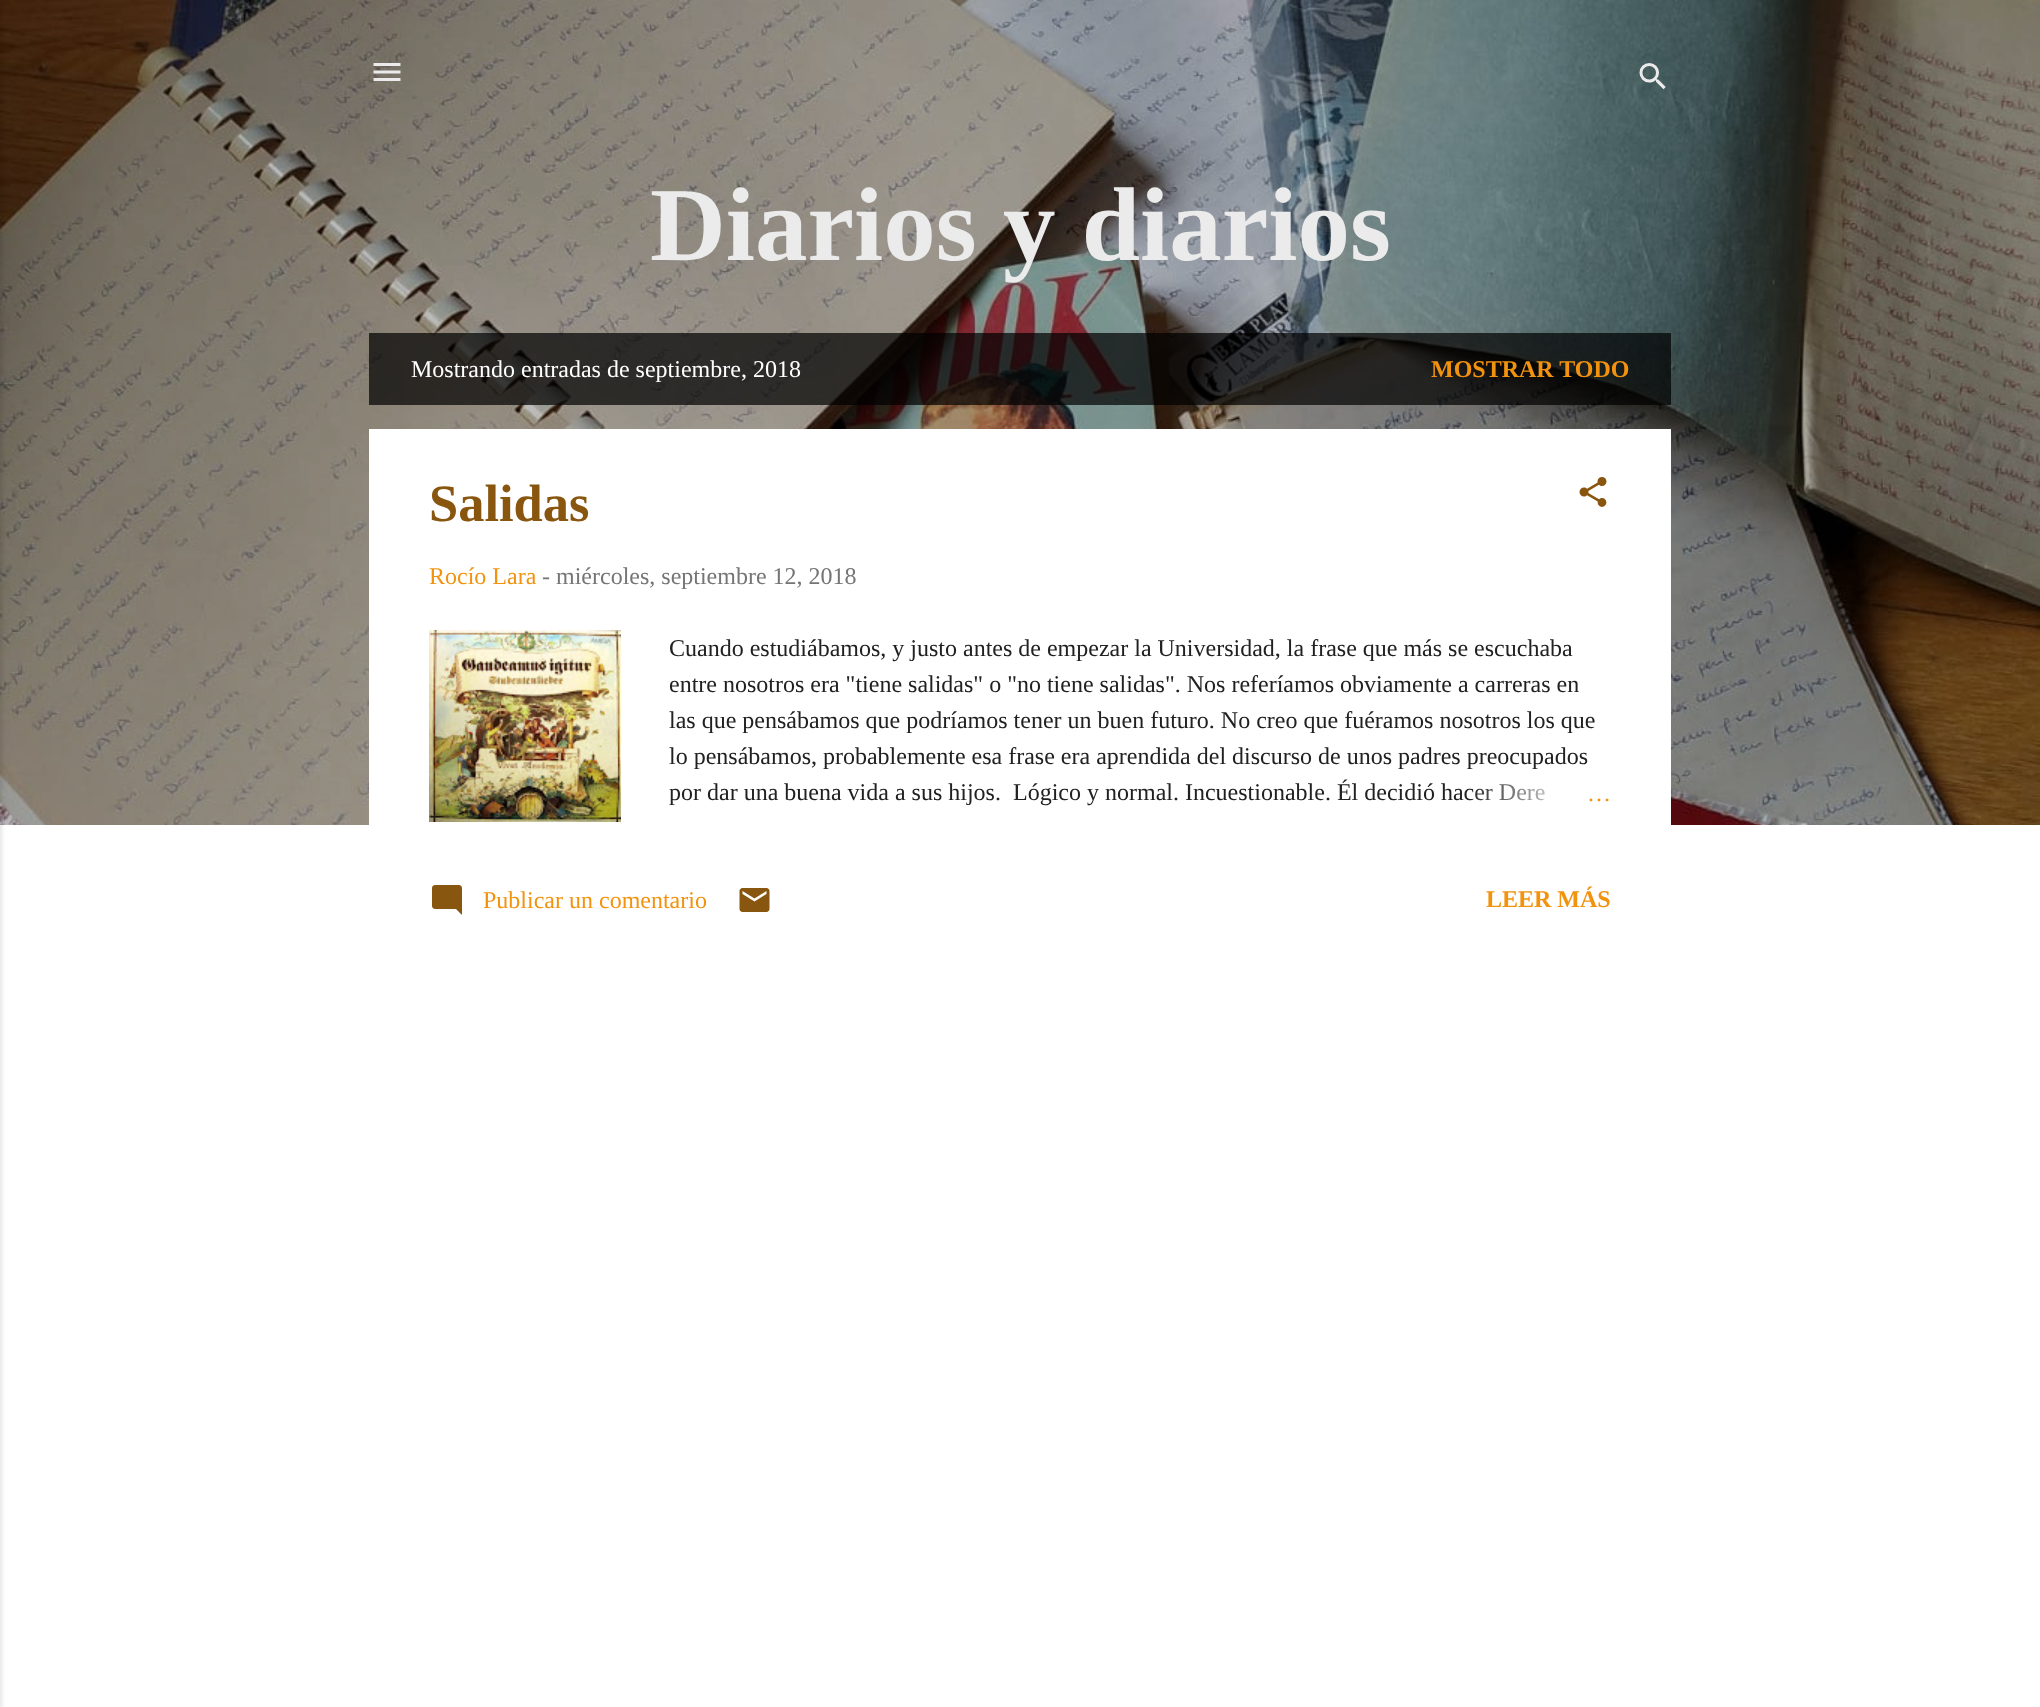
<svg xmlns="http://www.w3.org/2000/svg" width="2040" height="1707">
<style>
.a{font:bold 105px Liberation Serif;fill:#ebebeb}
.b{font:24px Liberation Serif;fill:#fff}
.c{font:bold 24px Liberation Serif;fill:#f2930f}
.d{font:bold 52.5px Liberation Serif;fill:#89560f}
.e{font:24px Liberation Serif;fill:#f2930f}
.f{font:24px Liberation Serif;fill:#757575}
.g{font:24px Liberation Serif;fill:#212121}
</style>
<defs>
<linearGradient id="g1" gradientUnits="userSpaceOnUse" x1="1611" y1="792" x2="1467" y2="792"><stop offset="0" stop-color="#fff"/><stop offset="0.2" stop-color="#fff"/><stop offset="1" stop-color="#fff" stop-opacity="0"/></linearGradient>
</defs>
<rect width="100%" height="100%" fill="#fff"/>
<image href="1.png" x="0" y="0" width="2040" height="825"/>
<path fill="#0000001a" filter="blur(2px)" d="M-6 2h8v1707H-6z"/>
<image href="2.png" x="373" y="63" width="28" height="18"/>
<image href="3.png" x="1639" y="63" width="27" height="27"/>
<path fill="#000000b3" d="M369 333h1302v72H369z"/>
<path fill="#fff" d="M369 429h1302v396H369z"/>
<image href="4.png" x="1579" y="477" width="28" height="30"/>
<image href="5.png" x="429" y="630" width="192" height="192"/>
<image href="6.png" x="432" y="885" width="30" height="30"/>
<image href="7.png" x="739" y="888" width="31" height="24"/>
<text class="a" x="650" y="260">Diarios y diarios</text>
<text class="b" x="411" y="377">Mostrando entradas de septiembre, 2018</text>
<text class="c" x="1431" y="377">MOSTRAR TODO</text>
<text class="d" x="429" y="521">Salidas</text>
<text class="e" x="429" y="584">Rocío Lara</text>
<text class="f" x="542" y="584">- miércoles, septiembre 12, 2018</text>
<text class="g" x="669" y="656">Cuando estudiábamos, y justo antes de empezar la Universidad, la frase que más se escuchaba</text>
<text class="g" x="669" y="692">entre nosotros era "tiene salidas" o "no tiene salidas". Nos referíamos obviamente a carreras en</text>
<text class="g" x="669" y="728">las que pensábamos que podríamos tener un buen futuro. No creo que fuéramos nosotros los que</text>
<text class="g" x="669" y="764">lo pensábamos, probablemente esa frase era aprendida del discurso de unos padres preocupados</text>
<text class="g" x="669" y="800">por dar una buena vida a sus hijos.</text>
<text class="g" x="1013" y="800">Lógico y normal. Incuestionable. Él decidió hacer Dere</text>
<path fill="url(#g1)" d="M1469 784h76v17H1469z"/>
<text class="e" x="1587" y="801">…</text>
<text class="e" x="483" y="908">Publicar un comentario</text>
<text class="c" x="1486" y="907">LEER MÁS</text>
</svg>
